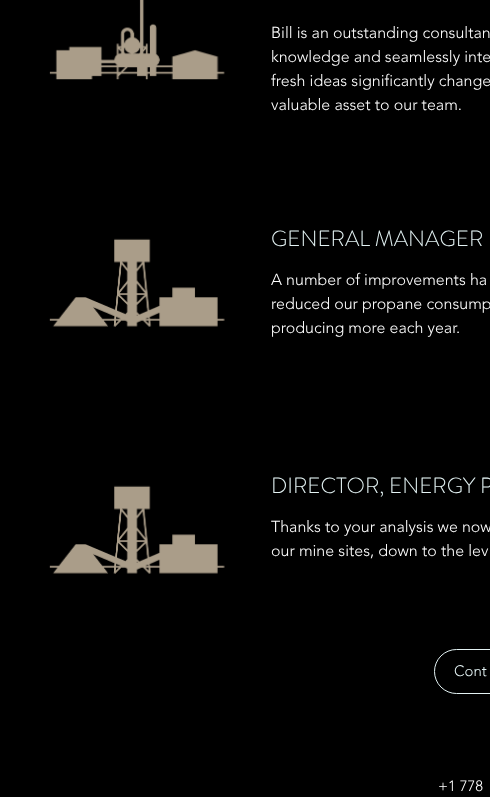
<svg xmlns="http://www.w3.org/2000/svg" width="490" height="797">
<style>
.a{font:300 16px 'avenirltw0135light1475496';fill:#fff}
.b{font:300 22px 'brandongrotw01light';fill:#e3f2f3}
.c{font:300 15px 'avenirltw0135light1475496';fill:#e3f2f3}
.d{font:300 15px 'avenirltw0135light1475496';fill:#fff}
</style>
<rect width="100%" height="100%" fill="#000"/>
<image href="1.png" x="49" y="0" width="176" height="80"/>
<image href="2.png" x="49" y="238" width="176" height="89"/>
<image href="2.png" x="49" y="485" width="176" height="89"/>
<rect fill="none" stroke="#e3f2f3" x="434.5" y="649.5" width="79" height="44" rx="22"/>
<text class="a" x="271" y="38">Bill is an outstanding consultan</text>
<text class="a" x="271" y="62">knowledge and seamlessly inte</text>
<text class="a" x="271" y="86">fresh ideas significantly change</text>
<text class="a" x="271" y="110">valuable asset to our team.</text>
<text class="b" x="271" y="246">GENERAL MANAGER</text>
<text class="a" x="271" y="285">A number of improvements ha</text>
<text class="a" x="271" y="309">reduced our propane consump</text>
<text class="a" x="271" y="333">producing more each year.</text>
<text class="b" x="271" y="493">DIRECTOR, ENERGY P</text>
<text class="a" x="271" y="532">Thanks to your analysis we now</text>
<text class="a" x="271" y="556">our mine sites, down to the lev</text>
<text class="c" x="454" y="676">Cont</text>
<text class="d" x="438" y="791">+1 778</text>
</svg>
